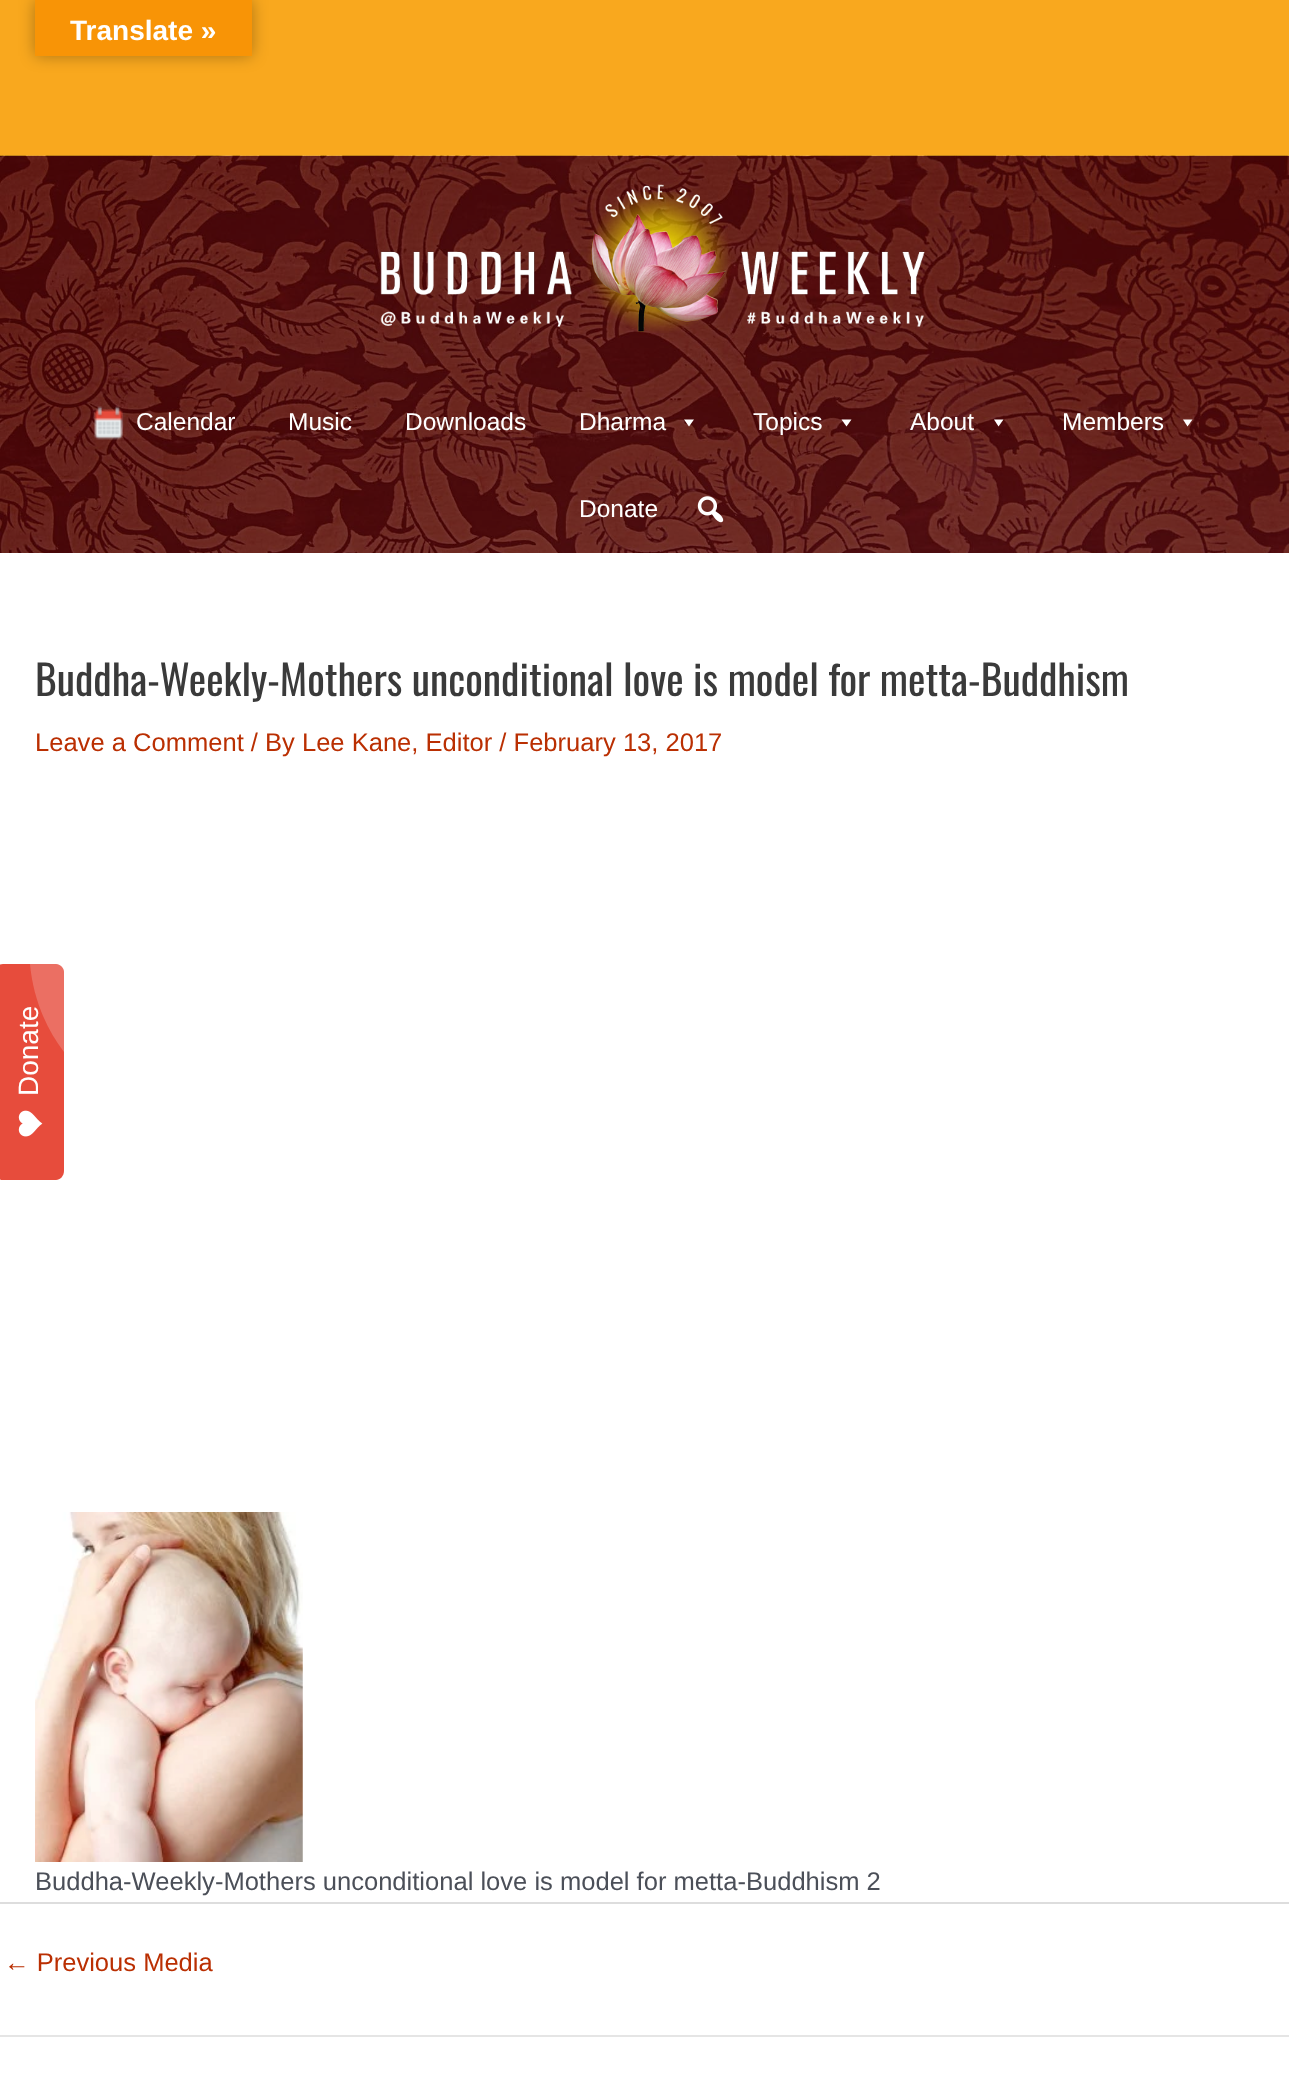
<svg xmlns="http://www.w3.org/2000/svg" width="1289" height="2073">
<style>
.a{font:bold 28px Liberation Sans;fill:#fff}
.b{font:24.5px Liberation Sans;fill:#fff}
.c{font:41.5px Oswald;fill:#3a3a3a}
.d{font:25.55px Liberation Sans;fill:#ba2f02}
.e{font:25.55px Liberation Sans;fill:#4b4f58}
.f{font:28px Liberation Sans;fill:#fff}
</style>
<rect width="100%" height="100%" fill="#fff"/>
<path fill="#f9a81e" d="M0 0h1289v156H0z"/>
<path fill="#0000004d" filter="blur(8px)" d="M35 0h217v56H35z"/>
<path fill="#f89406" d="M35 0h217v56H35z"/>
<image href="1.png" x="0" y="155" width="1289" height="398"/>
<image href="2.png" x="380" y="184" width="545" height="149"/>
<image href="3.png" x="94" y="406" width="29" height="34"/>
<path fill="#fff" d="M694 419.5l-5 7l-5-7z"/>
<path fill="#fff" d="M851.5 419.5l-5 7l-5-7z"/>
<path fill="#fff" d="M1003.5 419.5l-5 7l-4.5-7z"/>
<path fill="#fff" d="M1192.5 419.5l-5 7l-4.5-7z"/>
<image href="4.png" x="697" y="496" width="27" height="27"/>
<image href="5.png" x="35" y="1512" width="268" height="350"/>
<path fill="#ddd" d="M0 1902h1289v2H0z"/>
<path fill="#e5e5e5" d="M0 2035h1289v2H0z"/>
<path fill="#e74c3c" d="M-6 1171v-199c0-4 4-8 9-8h53c4 0 8 4 8 8v199c0 5-4 9-8 9h-53c-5 0-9-4-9-9z"/>
<image href="6.png" x="18" y="1110" width="25" height="27"/>
<text class="a" x="70" y="40">Translate »</text>
<text class="b" x="136" y="430">Calendar</text>
<text class="b" x="288" y="430">Music</text>
<text class="b" x="405" y="430">Downloads</text>
<text class="b" x="579" y="430">Dharma</text>
<text class="b" x="753" y="430">Topics</text>
<text class="b" x="910" y="430">About</text>
<text class="b" x="1062" y="430">Members</text>
<text class="b" x="579" y="517">Donate</text>
<text class="c" x="35" y="696">Buddha-Weekly-Mothers unconditional love is model for metta-Buddhism</text>
<text class="d" x="35" y="751">Leave a Comment / By Lee Kane, Editor / February 13, 2017</text>
<text class="e" x="35" y="1890">Buddha-Weekly-Mothers unconditional love is model for metta-Buddhism 2</text>
<text class="d" x="4" y="1971">← Previous Media</text>
<text class="f" x="38" y="1096" transform="rotate(-90 38 1096)">Donate</text>
<path fill="#ffffff33" d="M64 1052c-19-25-31-55-34-88h26c4 0 8 4 8 8z"/>
</svg>
